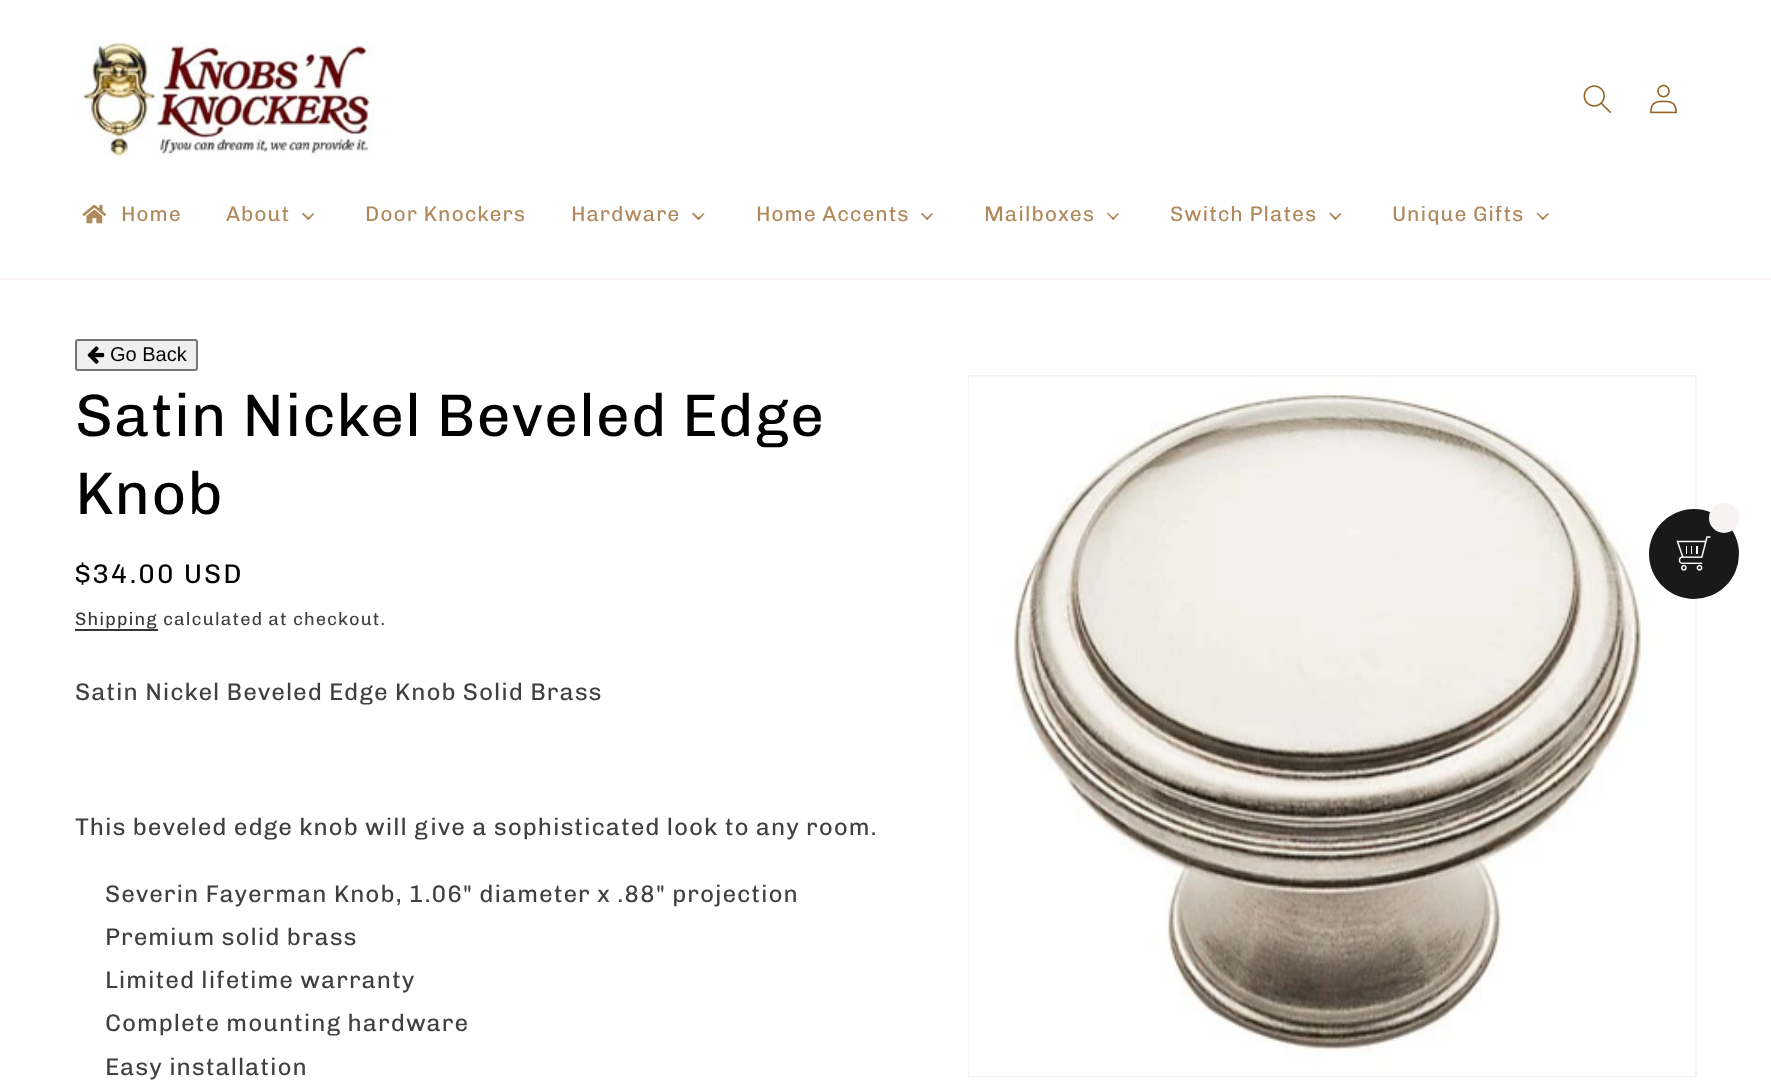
<svg xmlns="http://www.w3.org/2000/svg" width="1771" height="1092">
<style>
.a{font:21px Chivo;letter-spacing:0.9px;fill:#b0895c}
.b{font:20px Liberation Sans;fill:#000}
.c{font:60px Chivo;letter-spacing:0.9px;fill:#000}
.d{font:27px Chivo;letter-spacing:2px;fill:#000}
.e{font:18px Chivo;letter-spacing:1.05px;fill:#363636}
.f{font:18px Chivo;letter-spacing:1.05px;fill:#404040}
.g{font:24px Chivo;letter-spacing:0.9px;fill:#404040}
</style>
<rect width="100%" height="100%" fill="#fff"/>
<path fill="#f7f2ee" d="M0 278h1771v2H0z"/>
<image href="1.png" x="75" y="42" width="300" height="116"/>
<image href="2.png" x="1583" y="85" width="28" height="28"/>
<image href="3.png" x="1650" y="84" width="27" height="30"/>
<image href="4.png" x="82" y="204" width="25" height="20"/>
<path fill="#b0895c" d="M313 213l1.5 1l-6 6l-1-1.5z"/>
<path fill="#956125bf" d="M303 212.5l6.5 6l-1.5 1.5l-6-6z"/>
<path fill="#b0895c" d="M703.5 213l1 1l-5.5 6l-1.5-1.5z"/>
<path fill="#956125bf" d="M693.5 212.5l6 6l-1.5 1.5l-6-6z"/>
<path fill="#b0895c" d="M932 213l1 1l-5.5 6l-1.5-1.5z"/>
<path fill="#956125bf" d="M922 212.5l6 6l-1 1.5l-6-6z"/>
<path fill="#b0895c" d="M1118 213l1 1l-5.5 6l-1.5-1.5z"/>
<path fill="#956125bf" d="M1108 212.5l6 6l-1 1.5l-6-6.5z"/>
<path fill="#b0895c" d="M1340 213l1.5 1l-6 6l-1-1.5z"/>
<path fill="#956125bf" d="M1330.5 212.5l6 6l-1.5 1.5l-6-6.5z"/>
<path fill="#b0895c" d="M1547.5 213l1.5 1l-6 6l-1-1.5z"/>
<path fill="#956125bf" d="M1537.5 212.5l6.5 6l-1.5 1.5l-6-6.5z"/>
<rect fill="#efefef" stroke="#767676" stroke-width="2" x="76" y="340" width="121" height="30" rx="2"/>
<image href="5.png" x="87" y="346" width="18" height="18"/>
<path fill="#363636" d="M75 629h83v2H75z"/>
<path fill="none" stroke="#f2f2f2" stroke-width="2" d="M969 376h727v700H969z"/>
<image href="6.png" x="969" y="376" width="726" height="700"/>
<circle fill="#191919" cx="1694" cy="554" r="45"/>
<circle fill="#f7f3f3" cx="1724" cy="518" r="15"/>
<image href="7.png" x="1676" y="536" width="35" height="35"/>
<text class="a" x="121" y="221">Home</text>
<text class="a" x="226" y="221">About</text>
<text class="a" x="365" y="221">Door Knockers</text>
<text class="a" x="571" y="221">Hardware</text>
<text class="a" x="756" y="221">Home Accents</text>
<text class="a" x="984" y="221">Mailboxes</text>
<text class="a" x="1170" y="221">Switch Plates</text>
<text class="a" x="1392" y="221">Unique Gifts</text>
<text class="b" x="110" y="361">Go Back</text>
<text class="c" x="75" y="436">Satin Nickel Beveled Edge</text>
<text class="c" x="75" y="514">Knob</text>
<text class="d" x="75" y="583">$34.00 USD</text>
<text class="e" x="75" y="625">Shipping</text>
<text class="f" x="163" y="625">calculated at checkout.</text>
<text class="g" x="75" y="700">Satin Nickel Beveled Edge Knob Solid Brass</text>
<text class="g" x="75" y="835">This beveled edge knob will give a sophisticated look to any room.</text>
<text class="g" x="105" y="902">Severin Fayerman Knob, 1.06" diameter x .88" projection</text>
<text class="g" x="105" y="945">Premium solid brass</text>
<text class="g" x="105" y="988">Limited lifetime warranty</text>
<text class="g" x="105" y="1031">Complete mounting hardware</text>
<text class="g" x="105" y="1075">Easy installation</text>
</svg>
